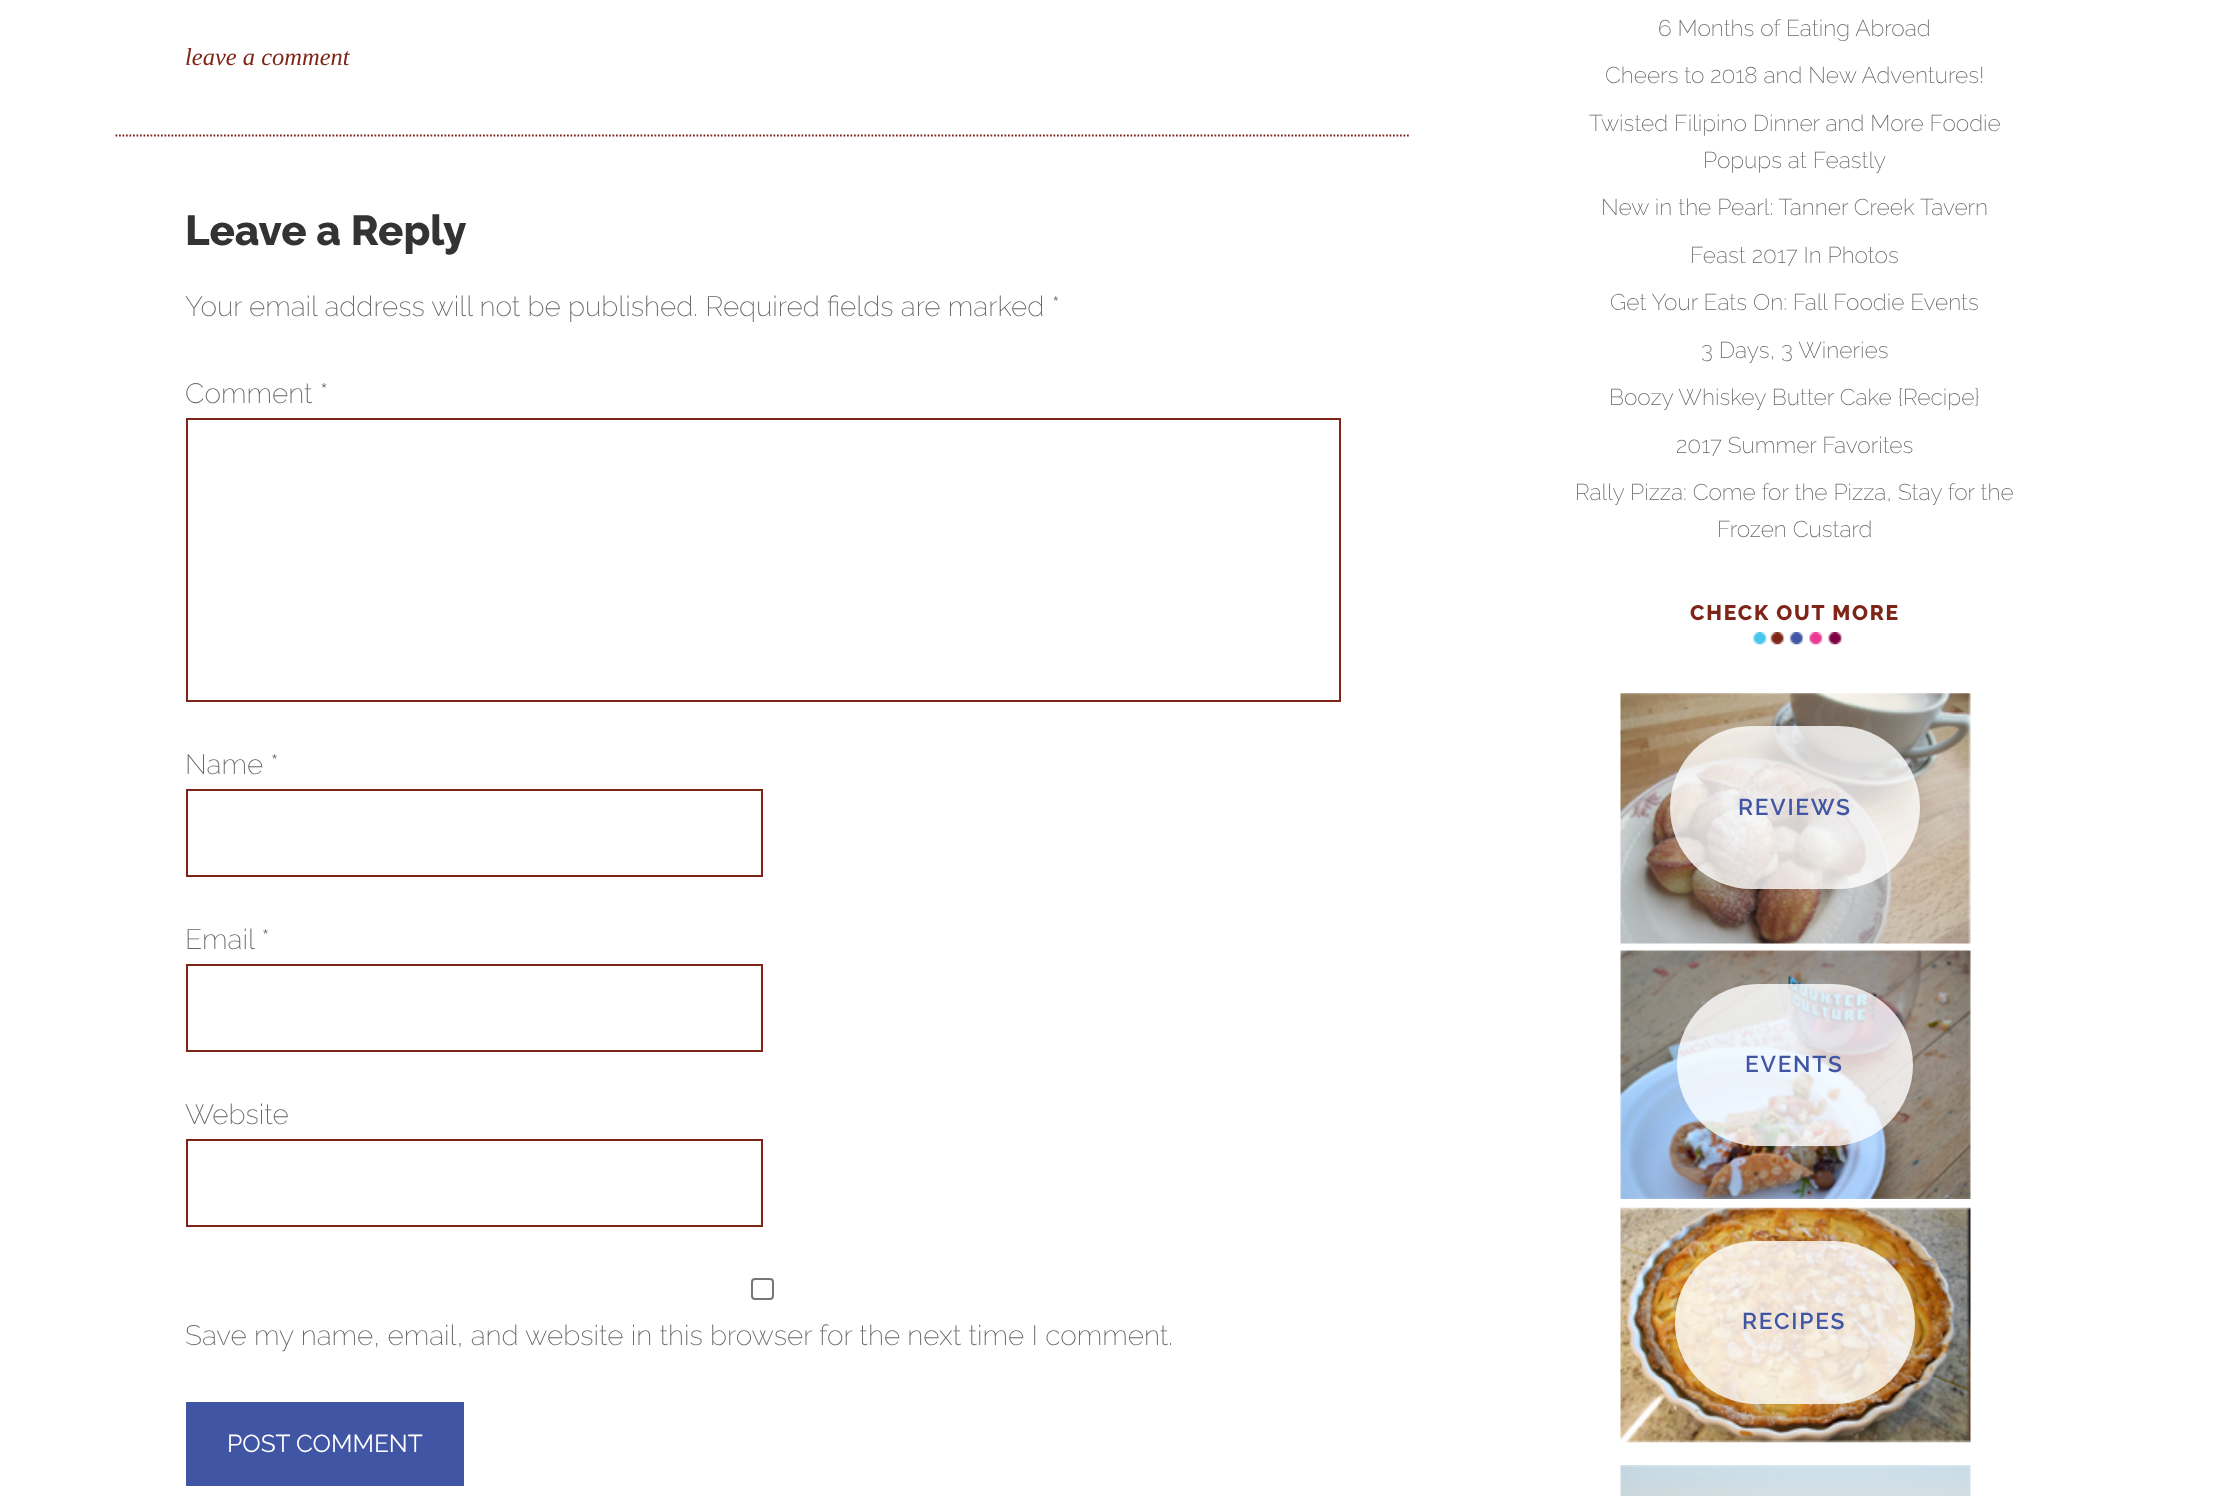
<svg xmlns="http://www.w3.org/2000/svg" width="2224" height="1496">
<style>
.a{font:italic 24.5px Liberation Serif;fill:#7e2517}
.b{font:800 42px Raleway;fill:#333}
.c{font:200 28px Raleway;fill:#666}
.d{font:24.5px Raleway;fill:#fff}
.e{font:200 22.75px Raleway;fill:#666}
.f{font:800 21px Raleway;letter-spacing:1.75px;fill:#7e2517}
.g{font:600 22.75px Raleway;letter-spacing:1.75px;fill:#4055a4}
</style>
<rect width="100%" height="100%" fill="#fff"/>
<path fill="none" stroke="#7e2517" stroke-width="1.8" stroke-dasharray="1.75 1.75" d="M115.5 135.5h1295"/>
<path fill="none" stroke="#7e2517" stroke-width="2" d="M187 419h1153v282H187z"/>
<path fill="none" stroke="#7e2517" stroke-width="2" d="M187 790h575v86H187z"/>
<path fill="none" stroke="#7e2517" stroke-width="2" d="M187 965h575v86H187z"/>
<path fill="none" stroke="#7e2517" stroke-width="2" d="M187 1140h575v86H187z"/>
<rect fill="none" stroke="#767676" stroke-width="2" x="752" y="1279" width="21" height="20" rx="3"/>
<path fill="#4055a4" d="M186 1402h278v84H186z"/>
<image href="1.png" x="1753" y="632" width="90" height="13"/>
<image href="2.png" x="1620" y="693" width="351" height="251"/>
<rect fill="#ffffffcc" x="1670" y="726" width="250" height="163" rx="81.5"/>
<image href="3.png" x="1620" y="950" width="351" height="249"/>
<rect fill="#ffffffcc" x="1677" y="984" width="236" height="162" rx="81"/>
<image href="4.png" x="1620" y="1207" width="351" height="236"/>
<rect fill="#ffffffcc" x="1675" y="1241" width="240" height="163" rx="81.5"/>
<image href="5.png" x="1620" y="1465" width="351" height="31"/>
<text class="a" x="185" y="65">leave a comment</text>
<text class="b" x="185" y="245">Leave a Reply</text>
<text class="c" x="185" y="316">Your email address will not be published. Required fields are marked *</text>
<text class="c" x="185" y="403">Comment *</text>
<text class="c" x="185" y="774">Name *</text>
<text class="c" x="185" y="949">Email *</text>
<text class="c" x="185" y="1124">Website</text>
<text class="c" x="185" y="1345">Save my name, email, and website in this browser for the next time I comment.</text>
<text class="d" x="227" y="1452">POST COMMENT</text>
<text class="e" x="1658" y="36">6 Months of Eating Abroad</text>
<text class="e" x="1605" y="83">Cheers to 2018 and New Adventures!</text>
<text class="e" x="1589" y="131">Twisted Filipino Dinner and More Foodie</text>
<text class="e" x="1703" y="168">Popups at Feastly</text>
<text class="e" x="1601" y="215">New in the Pearl: Tanner Creek Tavern</text>
<text class="e" x="1690" y="263">Feast 2017 In Photos</text>
<text class="e" x="1610" y="310">Get Your Eats On: Fall Foodie Events</text>
<text class="e" x="1701" y="358">3 Days, 3 Wineries</text>
<text class="e" x="1609" y="405">Boozy Whiskey Butter Cake {Recipe}</text>
<text class="e" x="1676" y="453">2017 Summer Favorites</text>
<text class="e" x="1575" y="500">Rally Pizza: Come for the Pizza, Stay for the</text>
<text class="e" x="1717" y="537">Frozen Custard</text>
<text class="f" x="1690" y="620">CHECK OUT MORE</text>
<text class="g" x="1738" y="815">REVIEWS</text>
<text class="g" x="1745" y="1072">EVENTS</text>
<text class="g" x="1742" y="1329">RECIPES</text>
</svg>
